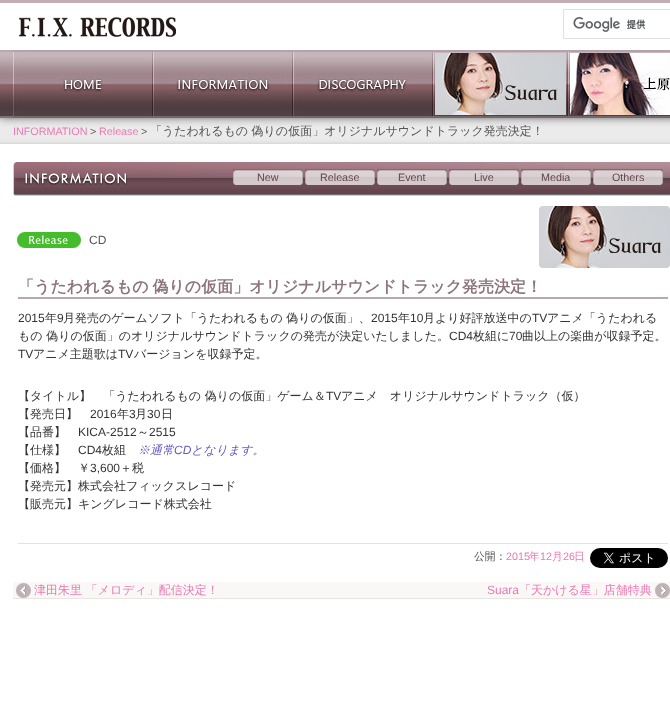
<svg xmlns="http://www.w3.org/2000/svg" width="670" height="701">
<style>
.a{font:10.75px Liberation Sans;fill:#ec79b3}
.b{font:10.75px Liberation Sans;fill:#555}
.c{font:500 12px WenQuanYi Zen Hei;fill:#555}
.d{font:10.75px Liberation Sans;fill:#63454d}
.e{font:12px Liberation Sans;fill:#555}
.f{font:bold 16px WenQuanYi Zen Hei;fill:#8c757b}
.g{font:12px Liberation Sans;fill:#333}
.h{font:500 12px WenQuanYi Zen Hei;fill:#333}
.i{font:italic 500 12px WenQuanYi Zen Hei;fill:#6a58c0}
.j{font:italic 12px Liberation Sans;fill:#6a58c0}
.k{font:500 10.75px WenQuanYi Zen Hei;fill:#555}
.l{font:500 10.75px WenQuanYi Zen Hei;fill:#ec79b3}
.m{font:500 12px WenQuanYi Zen Hei;fill:#ec79b3}
.n{font:12px Liberation Sans;fill:#ec79b3}
</style>
<defs>
<clipPath id="clip1"><path d="M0 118h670v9H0z"/></clipPath>
</defs>
<rect width="100%" height="100%" fill="#fff"/>
<image href="1.png" x="0" y="0" width="670" height="118"/>
<image href="7.png" x="0" y="118" width="670" height="26"/>
<g clip-path="url(#clip1)">
<path fill="#0a000080" filter="blur(5px)" d="M0 0h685v118H0z"/>
</g>
<image href="2.png" x="19" y="17" width="157" height="20"/>
<path fill="none" stroke="#dfe1e5" d="M563.5 9.5h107v29H563.5z"/>
<image href="3.png" x="573" y="17" width="73" height="15"/>
<image href="4.png" x="13" y="50" width="657" height="68"/>
<image href="5.png" x="435" y="53" width="131" height="62"/>
<image href="6.png" x="570" y="53" width="100" height="62"/>
<image href="8.png" x="13" y="162" width="657" height="34"/>
<image href="9.png" x="24" y="172" width="103" height="13"/>
<image href="10.png" x="233" y="169" width="70" height="16"/>
<image href="10.png" x="305" y="169" width="70" height="16"/>
<image href="10.png" x="377" y="169" width="70" height="16"/>
<image href="10.png" x="449" y="169" width="70" height="16"/>
<image href="10.png" x="521" y="169" width="70" height="16"/>
<image href="10.png" x="593" y="169" width="70" height="16"/>
<image href="11.png" x="17" y="232" width="64" height="16"/>
<image href="12.png" x="539" y="206" width="131" height="62"/>
<path fill="#b8a9ad" d="M18 297h650v2H18z"/>
<path fill="#edd" d="M18 543h650v1H18z"/>
<image href="13.png" x="590" y="548" width="78" height="20"/>
<path fill="#f9f8f7" d="M13 582h657v16H13z"/>
<path fill="#e9e4e0" d="M13 598h657v1H13z"/>
<image href="14.png" x="16" y="583" width="15" height="15"/>
<image href="15.png" x="655" y="583" width="15" height="15"/>
<text class="a" x="13" y="135">INFORMATION</text>
<text class="b" x="90" y="135">&gt;</text>
<text class="a" x="99" y="135">Release</text>
<text class="b" x="141" y="135">&gt;</text>
<text class="c" x="150" y="135">「うたわれるもの 偽りの仮面」オリジナルサウンドトラック発売決定！</text>
<text class="d" x="257" y="181">New</text>
<text class="d" x="320" y="181">Release</text>
<text class="d" x="398" y="181">Event</text>
<text class="d" x="474" y="181">Live</text>
<text class="d" x="541" y="181">Media</text>
<text class="d" x="612" y="181">Others</text>
<text class="e" x="89" y="244">CD</text>
<text class="f" x="18" y="292" word-spacing="-1">「うたわれるもの 偽りの仮面」オリジナルサウンドトラック発売決定！</text>
<text class="g" x="18" y="322">2015</text>
<text class="h" x="45" y="322">年</text>
<text class="g" x="57" y="322">9</text>
<text class="h" x="63" y="322">月発売のゲームソフト「うたわれるもの 偽りの仮面」、</text>
<text class="g" x="371" y="322">2015</text>
<text class="h" x="398" y="322">年</text>
<text class="g" x="410" y="322">10</text>
<text class="h" x="423" y="322">月より好評放送中の</text>
<text class="g" x="532" y="322">TV</text>
<text class="h" x="547" y="322">アニメ「うたわれる</text>
<text class="h" x="18" y="340">もの 偽りの仮面」のオリジナルサウンドトラックの発売が決定いたしました。</text>
<text class="g" x="449" y="340">CD4</text>
<text class="h" x="473" y="340">枚組に</text>
<text class="g" x="509" y="340">70</text>
<text class="h" x="522" y="340">曲以上の楽曲が収録予定。</text>
<text class="g" x="18" y="358">TV</text>
<text class="h" x="33" y="358">アニメ主題歌は</text>
<text class="g" x="118" y="358">TV</text>
<text class="h" x="134" y="358">バージョンを収録予定。</text>
<text class="h" x="18" y="400">【タイトル】　「うたわれるもの 偽りの仮面」ゲーム＆</text>
<text class="g" x="326" y="400">TV</text>
<text class="h" x="341" y="400">アニメ　オリジナルサウンドトラック（仮）</text>
<text class="h" x="18" y="418">【発売日】</text>
<text class="g" x="90" y="418">2016</text>
<text class="h" x="117" y="418">年</text>
<text class="g" x="129" y="418">3</text>
<text class="h" x="135" y="418">月</text>
<text class="g" x="147" y="418">30</text>
<text class="h" x="161" y="418">日</text>
<text class="h" x="18" y="436">【品番】</text>
<text class="g" x="78" y="436">KICA-2512</text>
<text class="h" x="137" y="436">～</text>
<text class="g" x="149" y="436">2515</text>
<text class="h" x="18" y="454">【仕様】</text>
<text class="g" x="78" y="454">CD4</text>
<text class="h" x="102" y="454">枚組</text>
<text class="i" x="138" y="454">※通常</text>
<text class="j" x="174" y="454">CD</text>
<text class="i" x="191" y="454">となります。</text>
<text class="h" x="18" y="472">【価格】　￥</text>
<text class="g" x="90" y="472">3,600</text>
<text class="h" x="120" y="472">＋税</text>
<text class="h" x="18" y="490">【発売元】株式会社フィックスレコード</text>
<text class="h" x="18" y="508">【販売元】キングレコード株式会社</text>
<text class="k" x="474" y="560">公開：</text>
<text class="a" x="506" y="560">2015</text>
<text class="l" x="529" y="560">年</text>
<text class="a" x="540" y="560">12</text>
<text class="l" x="552" y="560">月</text>
<text class="a" x="563" y="560">26</text>
<text class="l" x="574" y="560">日</text>
<text class="m" x="34" y="594">津田朱里 「メロディ」配信決定！</text>
<text class="n" x="487" y="594">Suara</text>
<text class="m" x="519" y="594">「天かける星」店舗特典</text>
</svg>
